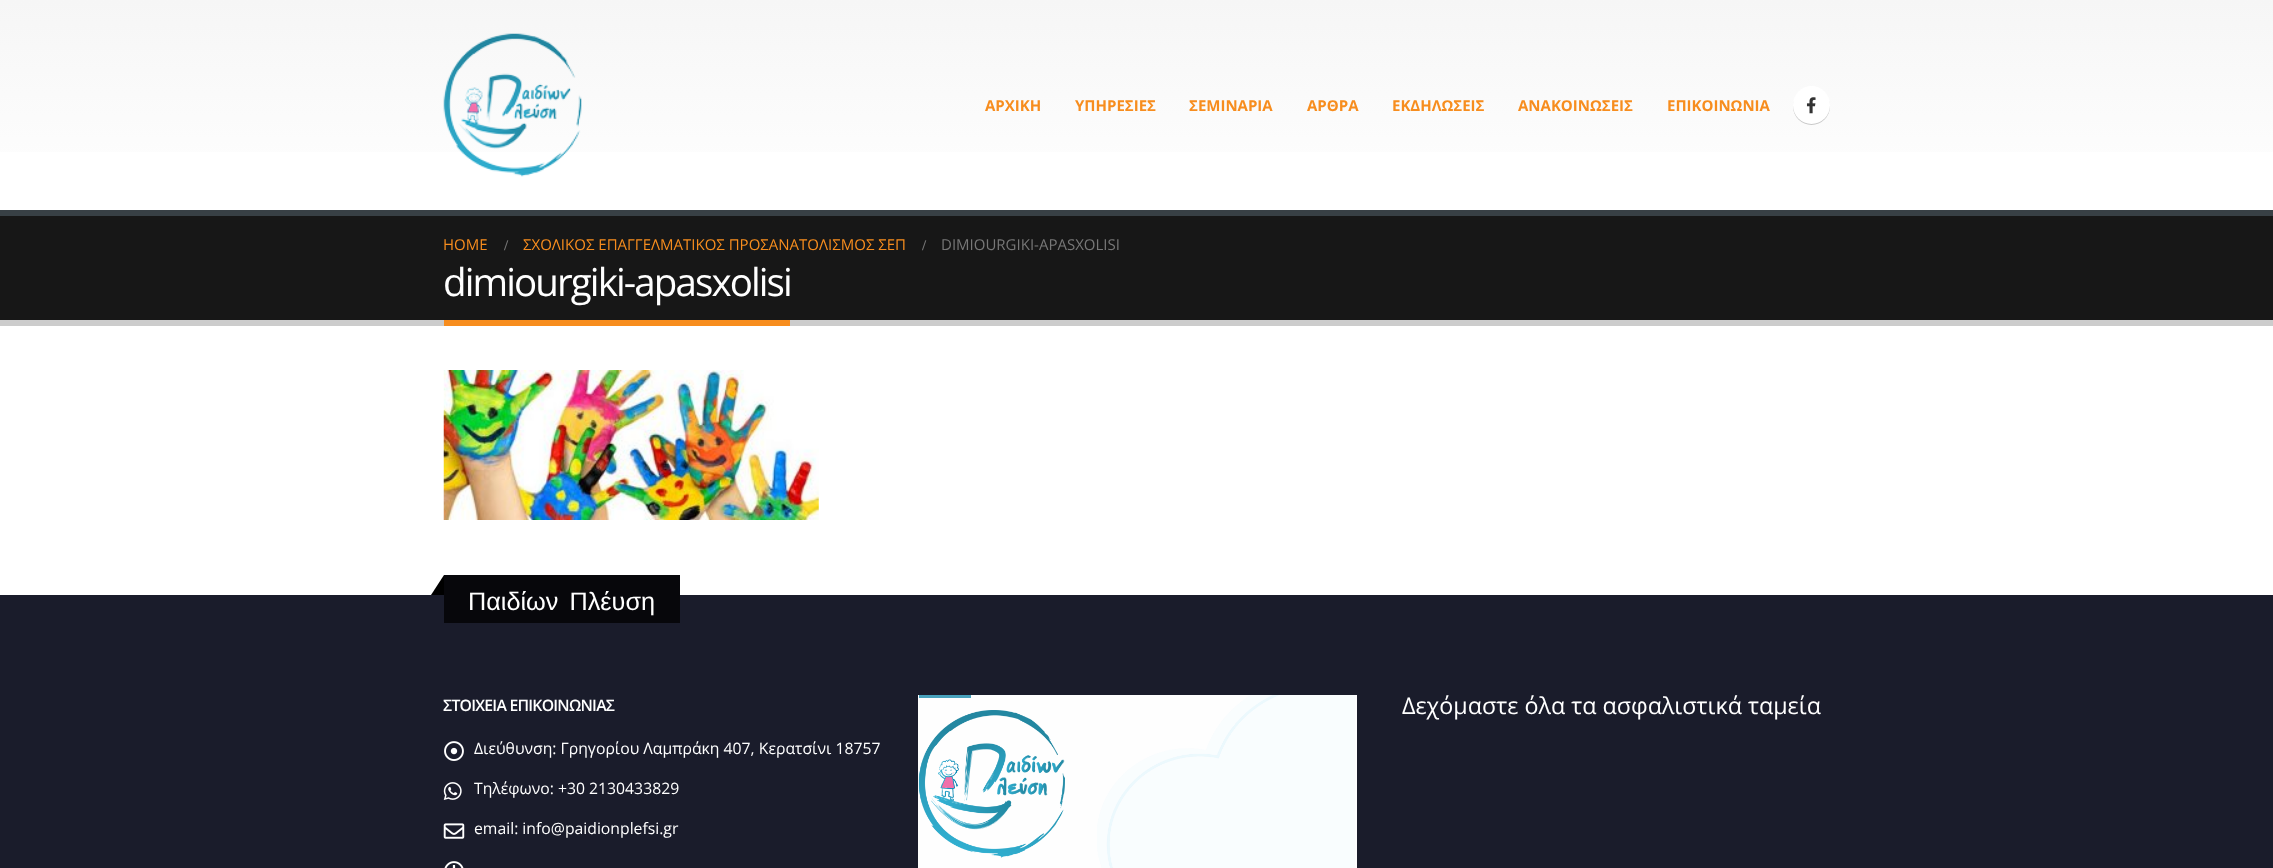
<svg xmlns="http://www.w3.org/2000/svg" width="2273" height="868">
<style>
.a{font:bold 15px Open Sans;fill:#f78d1e}
.b{font:15px Open Sans;fill:#f78d1e}
.c{font:bold 15px Liberation Serif;fill:#777}
.d{font:15px Open Sans;fill:#777}
.e{font:38.5px Open Sans;letter-spacing:-1.9px;fill:#fff}
.f{font:25.25px Liberation Sans;fill:#fff}
.g{font:600 15.75px Open Sans;letter-spacing:-0.75px;fill:#fff}
.h{font:15.75px Open Sans;fill:#fff}
.i{font:23.3px Open Sans;fill:#fff}
</style>
<defs>
<linearGradient id="g1" gradientUnits="userSpaceOnUse" x1="1137" y1="0" x2="1137" y2="210"><stop offset="0" stop-color="#f6f6f6"/><stop offset="1" stop-color="#fff"/></linearGradient>
</defs>
<rect width="100%" height="100%" fill="#fff"/>
<path fill="url(#g1)" d="M0 0h2273v152H0z"/>
<image href="1.png" x="443" y="33" width="139" height="144"/>
<rect fill="#00000033" filter="blur(0.5px)" x="1793" y="88" width="37" height="37" rx="18.5"/>
<rect fill="#fff" x="1793" y="86" width="37" height="38" rx="18.5"/>
<image href="2.png" x="1806" y="97" width="10" height="17"/>
<path fill="#171717" d="M0 216h2273v104H0z"/>
<path fill="#384045" d="M0 210h2273v6H0z"/>
<path fill="#ccc" d="M0 320h2273v6H0z"/>
<path fill="#f78d1e" d="M444 320h346v6H444z"/>
<image href="3.png" x="443" y="370" width="376" height="150"/>
<path fill="#1a1c2b" d="M0 595h2273v273H0z"/>
<path fill="#07070b" d="M444 575h236v48H444z"/>
<path fill="#000" d="M444 575v20h-13z"/>
<image href="4.png" x="444" y="741" width="20" height="20"/>
<image href="5.png" x="443" y="782" width="19" height="18"/>
<image href="6.png" x="443" y="823" width="22" height="16"/>
<image href="7.png" x="444" y="861" width="20" height="7"/>
<path fill="#fefefe" d="M918 695h439v173H918z"/>
<image href="8.png" x="918" y="710" width="147" height="148"/>
<image href="9.png" x="1097" y="695" width="258" height="173"/>
<path fill="#47a1bc" d="M919 695h52v3H919z"/>
<text class="a" x="985" y="111">ΑΡΧΙΚΗ</text>
<text class="a" x="1075" y="111">ΥΠΗΡΕΣΙΕΣ</text>
<text class="a" x="1189" y="111">ΣΕΜΙΝΑΡΙΑ</text>
<text class="a" x="1307" y="111">ΑΡΘΡΑ</text>
<text class="a" x="1392" y="111">ΕΚΔΗΛΩΣΕΙΣ</text>
<text class="a" x="1518" y="111">ΑΝΑΚΟΙΝΩΣΕΙΣ</text>
<text class="a" x="1667" y="111">ΕΠΙΚΟΙΝΩΝΙΑ</text>
<text class="b" x="443" y="250">HOME</text>
<text class="c" x="504" y="250">/</text>
<text class="b" x="523" y="250">ΣΧΟΛΙΚΟΣ ΕΠΑΓΓΕΛΜΑΤΙΚΟΣ ΠΡΟΣΑΝΑΤΟΛΙΣΜΟΣ ΣΕΠ</text>
<text class="c" x="922" y="250">/</text>
<text class="d" x="941" y="250">DIMIOURGIKI-APASXOLISI</text>
<text class="e" x="443" y="296">dimiourgiki-apasxolisi</text>
<text class="f" x="468" y="610" word-spacing="4">Παιδίων Πλέυση</text>
<text class="g" x="443" y="711">ΣΤΟΙΧΕΙΑ ΕΠΙΚΟΙΝΩΝΙΑΣ</text>
<text class="h" x="474" y="754">Διεύθυνση: Γρηγορίου Λαμπράκη 407, Κερατσίνι 18757</text>
<text class="h" x="474" y="794">Τηλέφωνο: +30 2130433829</text>
<text class="h" x="474" y="834">email: info@paidionplefsi.gr</text>
<text class="i" x="1402" y="714">Δεχόμαστε όλα τα ασφαλιστικά ταμεία</text>
</svg>
